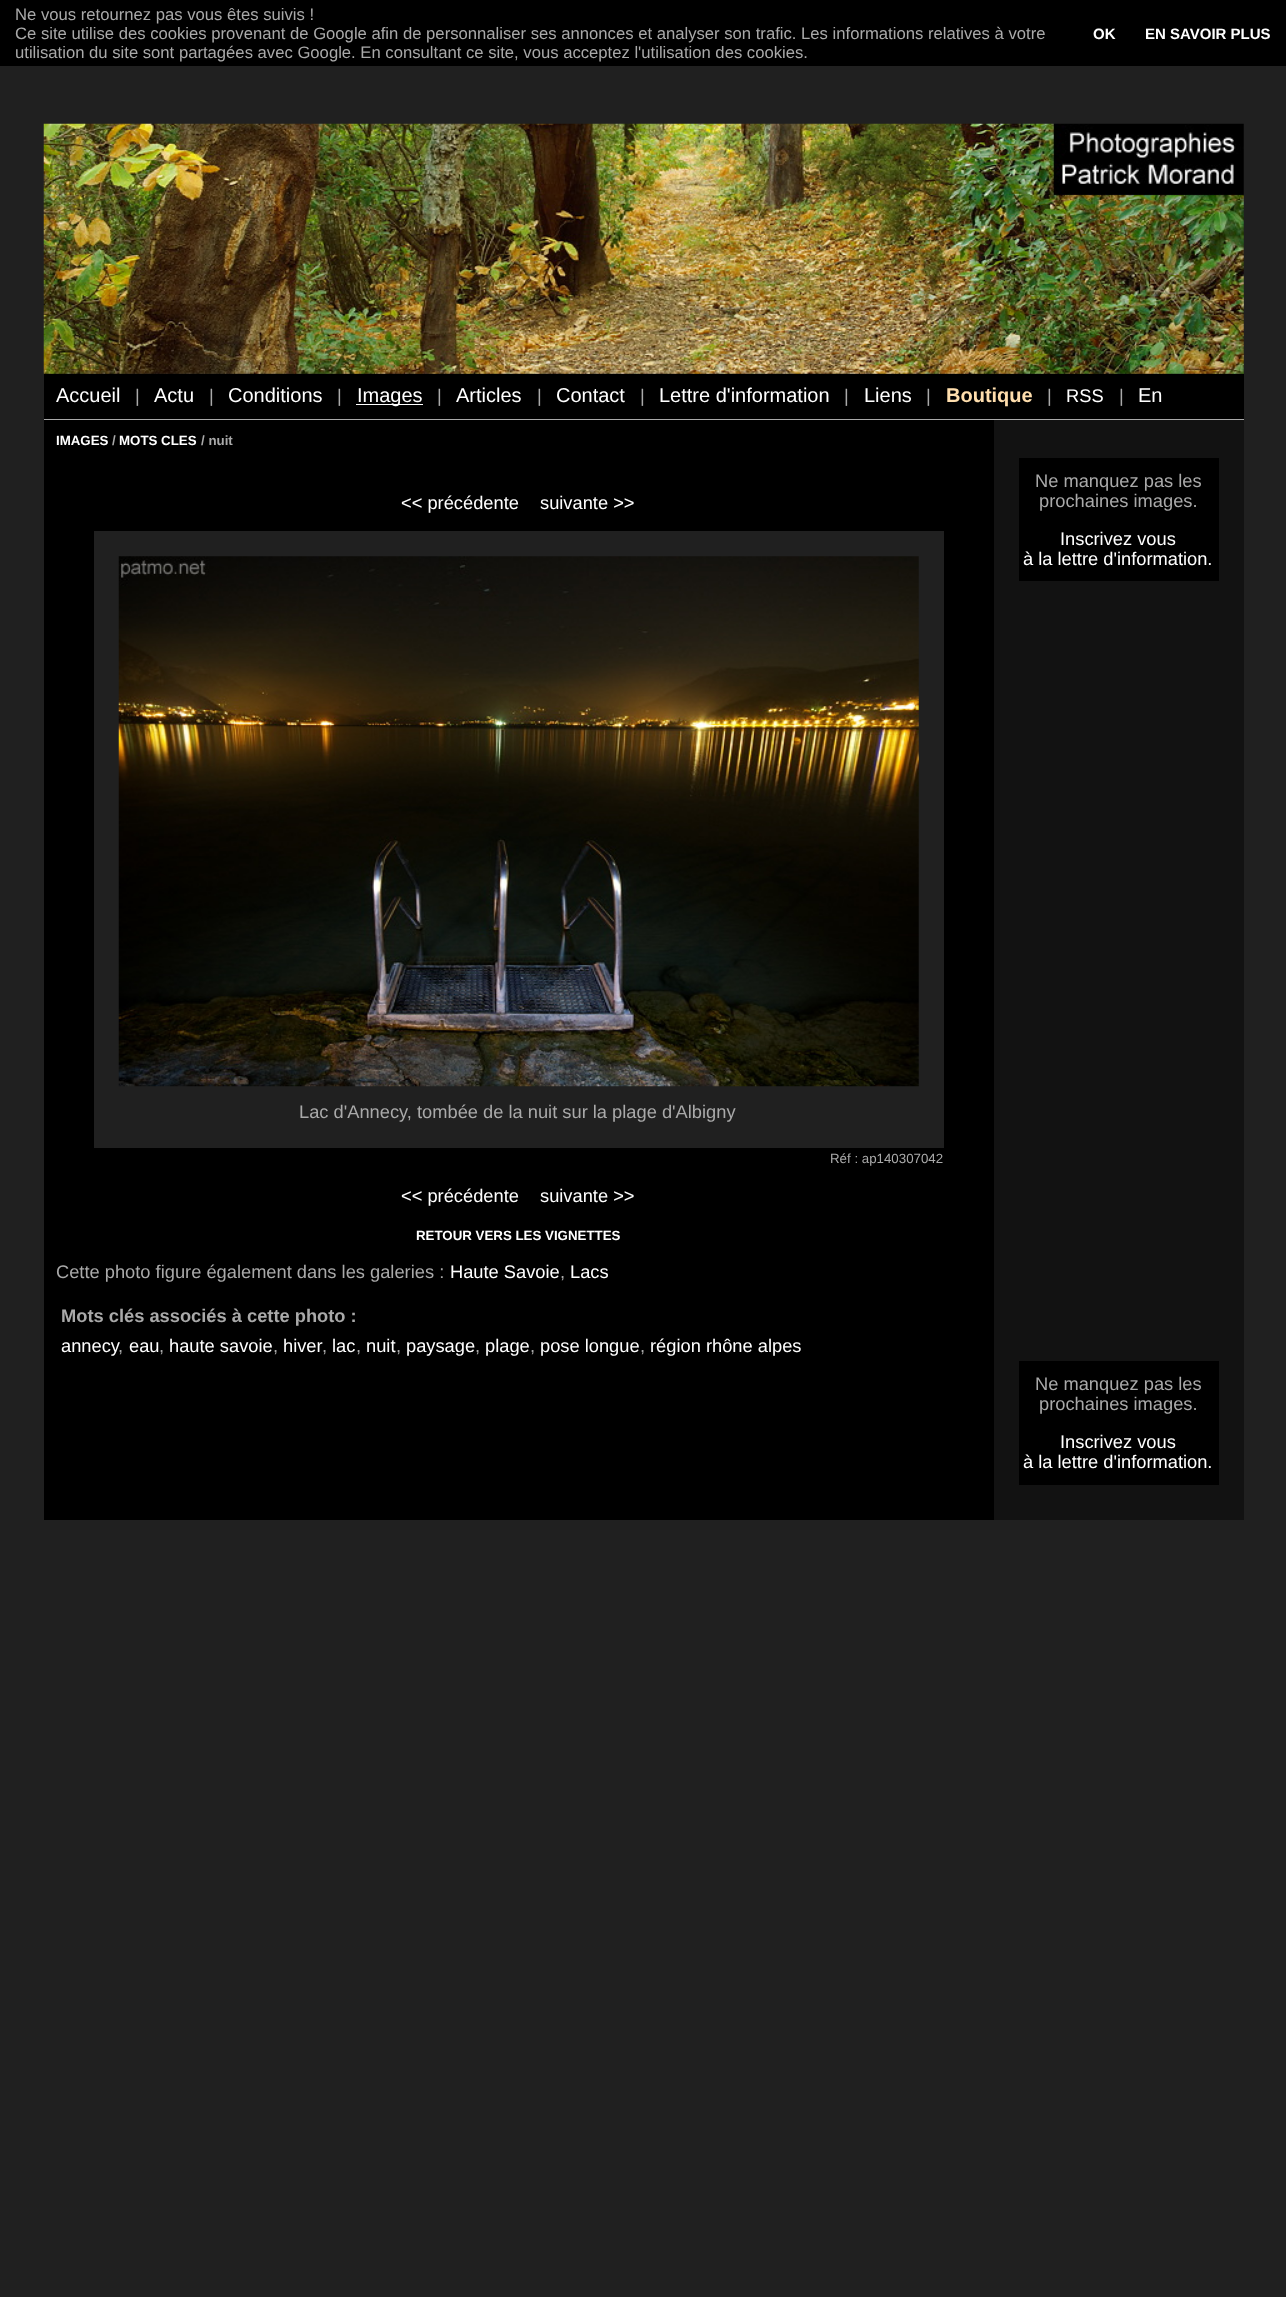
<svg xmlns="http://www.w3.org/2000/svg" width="1286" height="2297">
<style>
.a{font:16.67px Liberation Sans;fill:#a9a9a9}
.b{font:bold 15px Liberation Sans;fill:#fff}
.c{font:20px Liberation Sans;fill:#fff}
.d{font:18.3px Liberation Sans;fill:#a9a9a9}
.e{font:bold 20px Liberation Sans;fill:#ffdead}
.f{font:18.3px Liberation Sans;fill:#fff}
.g{font:bold 13.3px Liberation Sans;fill:#fff}
.h{font:bold 13.3px Liberation Sans;fill:#a9a9a9}
.i{font:13.3px Liberation Sans;fill:#a9a9a9}
.j{font:bold 18.3px Liberation Sans;fill:#a9a9a9}
</style>
<rect width="100%" height="100%" fill="#202020"/>
<path fill="#000" d="M0 0h1286v66H0z"/>
<image href="1.png" x="43" y="123" width="1201" height="251"/>
<path fill="#000" d="M44 374h1200v45H44z"/>
<path fill="#a9a9a9" d="M44 419h1200v1H44z"/>
<path fill="#fff" d="M356 404h67v1H356z"/>
<path fill="#000" d="M44 420h950v1100H44z"/>
<path fill="#202020" d="M94 531h850v617H94z"/>
<image href="2.png" x="118" y="556" width="801" height="531"/>
<path fill="#121212" d="M994 420h250v1100H994z"/>
<path fill="#000" d="M1019 458h200v123H1019z"/>
<path fill="#000" d="M1019 1361h200v124H1019z"/>
<text class="a" x="15" y="20">Ne vous retournez pas vous êtes suivis !</text>
<text class="a" x="15" y="39">Ce site utilise des cookies provenant de Google afin de personnaliser ses annonces et analyser son trafic. Les informations relatives à votre</text>
<text class="a" x="15" y="58">utilisation du site sont partagées avec Google. En consultant ce site, vous acceptez l'utilisation des cookies.</text>
<text class="b" x="1093" y="39">OK</text>
<text class="b" x="1145" y="39">EN SAVOIR PLUS</text>
<text class="c" x="56" y="402">Accueil</text>
<text class="d" x="135" y="402">|</text>
<text class="c" x="154" y="402">Actu</text>
<text class="d" x="209" y="402">|</text>
<text class="c" x="228" y="402">Conditions</text>
<text class="d" x="337" y="402">|</text>
<text class="c" x="357" y="402">Images</text>
<text class="d" x="437" y="402">|</text>
<text class="c" x="456" y="402">Articles</text>
<text class="d" x="537" y="402">|</text>
<text class="c" x="556" y="402">Contact</text>
<text class="d" x="640" y="402">|</text>
<text class="c" x="659" y="402">Lettre d'information</text>
<text class="d" x="844" y="402">|</text>
<text class="c" x="864" y="402">Liens</text>
<text class="d" x="926" y="402">|</text>
<text class="e" x="946" y="402">Boutique</text>
<text class="d" x="1047" y="402">|</text>
<text class="f" x="1066" y="402">RSS</text>
<text class="d" x="1119" y="402">|</text>
<text class="c" x="1138" y="402">En</text>
<text class="g" x="56" y="445">IMAGES</text>
<text class="h" x="112" y="445">/</text>
<text class="g" x="119" y="445">MOTS CLES</text>
<text class="h" x="201" y="445">/ nuit</text>
<text class="f" x="401" y="509">&lt;&lt; précédente</text>
<text class="f" x="540" y="509">suivante &gt;&gt;</text>
<text class="d" x="299" y="1118">Lac d'Annecy, tombée de la nuit sur la plage d'Albigny</text>
<text class="i" x="830" y="1163">Réf : ap140307042</text>
<text class="f" x="401" y="1202">&lt;&lt; précédente</text>
<text class="f" x="540" y="1202">suivante &gt;&gt;</text>
<text class="g" x="416" y="1240">RETOUR VERS LES VIGNETTES</text>
<text class="d" x="56" y="1278">Cette photo figure également dans les galeries :</text>
<text class="f" x="450" y="1278">Haute Savoie</text>
<text class="d" x="560" y="1278">,</text>
<text class="f" x="570" y="1278">Lacs</text>
<text class="j" x="61" y="1322">Mots clés associés à cette photo :</text>
<text class="f" x="61" y="1352">annecy</text>
<text class="d" x="118" y="1352">,</text>
<text class="f" x="129" y="1352">eau</text>
<text class="d" x="159" y="1352">,</text>
<text class="f" x="169" y="1352">haute savoie</text>
<text class="d" x="273" y="1352">,</text>
<text class="f" x="283" y="1352">hiver</text>
<text class="d" x="322" y="1352">,</text>
<text class="f" x="332" y="1352">lac</text>
<text class="d" x="356" y="1352">,</text>
<text class="f" x="366" y="1352">nuit</text>
<text class="d" x="396" y="1352">,</text>
<text class="f" x="406" y="1352">paysage</text>
<text class="d" x="475" y="1352">,</text>
<text class="f" x="485" y="1352">plage</text>
<text class="d" x="530" y="1352">,</text>
<text class="f" x="540" y="1352">pose longue</text>
<text class="d" x="640" y="1352">,</text>
<text class="f" x="650" y="1352">région rhône alpes</text>
<text class="d" x="1035" y="487">Ne manquez pas les</text>
<text class="d" x="1039" y="507">prochaines images.</text>
<text class="f" x="1060" y="545">Inscrivez vous</text>
<text class="f" x="1023" y="565">à la lettre d'information.</text>
<text class="d" x="1035" y="1390">Ne manquez pas les</text>
<text class="d" x="1039" y="1410">prochaines images.</text>
<text class="f" x="1060" y="1448">Inscrivez vous</text>
<text class="f" x="1023" y="1468">à la lettre d'information.</text>
</svg>
